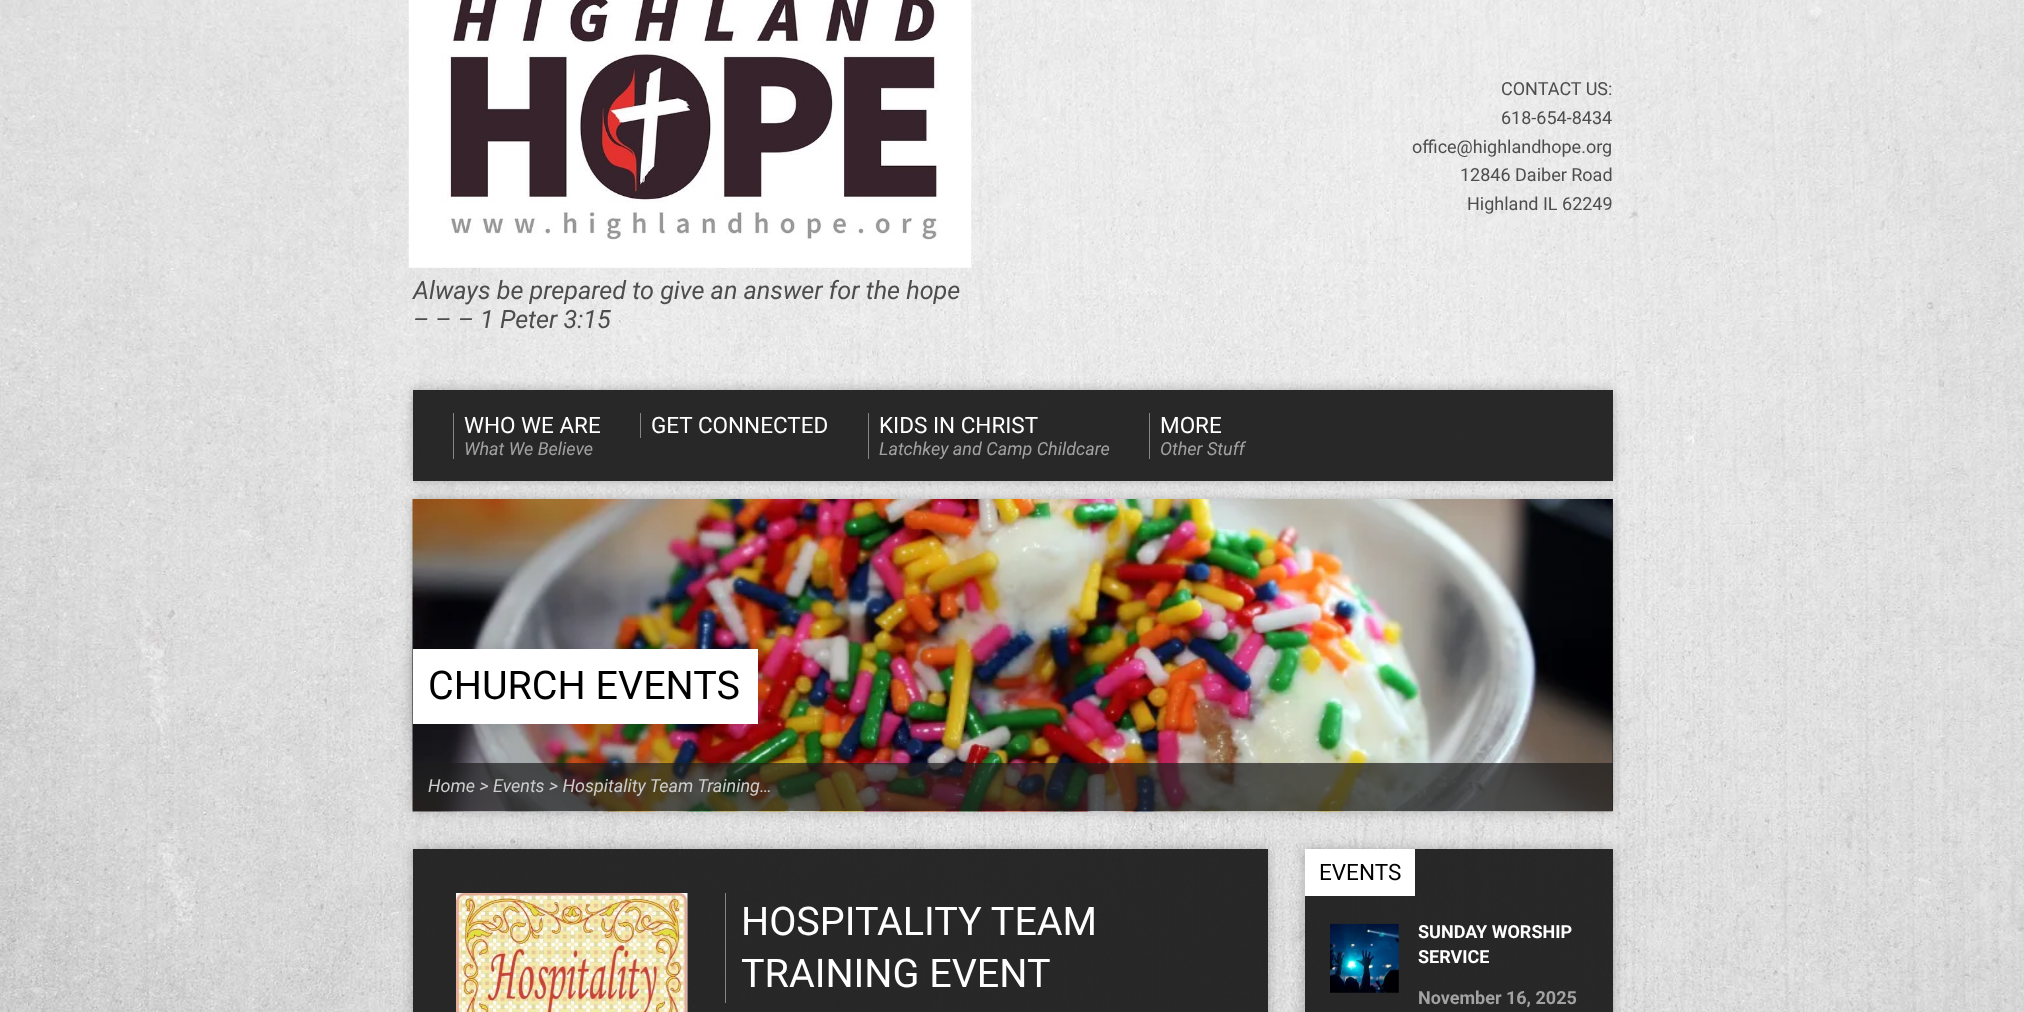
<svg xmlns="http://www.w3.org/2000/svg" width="2024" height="1012">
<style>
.a{font:18px Roboto;fill:#4d4d4d}
.b{font:italic 25.2px Roboto;fill:#4d4d4d}
.c{font:22.5px Roboto;fill:#fff}
.d{font:italic 18px Roboto;fill:#a2a2a2}
.e{font:39.5px Roboto;fill:#000}
.f{font:italic 18px Roboto;fill:#ccc}
.g{font:39.5px Roboto;fill:#fff}
.h{font:22.5px Roboto;fill:#000}
.i{font:bold 18px Roboto;fill:#fff}
.j{font:bold 18px Roboto;fill:#a2a2a2}
</style>
<defs>
<clipPath id="clip1"><path d="M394 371h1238v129h-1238zm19 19h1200v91h-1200z" clip-rule="evenodd"/></clipPath>
<clipPath id="clip2"><path d="M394 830h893v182h-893zm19 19h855v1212h-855z" clip-rule="evenodd"/></clipPath>
<clipPath id="clip3"><path d="M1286 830h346v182h-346zm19 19h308v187h-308z" clip-rule="evenodd"/></clipPath>
</defs>
<rect width="100%" height="100%" fill="#fff"/>
<image href="1.png" x="0" y="0" width="2024" height="1012"/>
<image href="2.png" x="408" y="0" width="564" height="268"/>
<g clip-path="url(#clip1)">
<path fill="#00000040" filter="blur(6px)" d="M413 390h1200v91H413z"/>
</g>
<path fill="#1c1c1cf0" d="M413 390h1200v91H413z"/>
<path fill="#868686" d="M453 413h1v46H453z"/>
<path fill="#868686" d="M640 413h1v25H640z"/>
<path fill="#868686" d="M868 413h1v46H868z"/>
<path fill="#868686" d="M1149 413h1v46H1149z"/>
<path fill="#00000040" filter="blur(6px)" d="M413 499h1200v312H413z"/>
<path fill="#1c1c1cf0" d="M1612 499h1v312H1612z"/>
<image href="3.png" x="412" y="499" width="1201" height="313"/>
<path fill="#00000026" filter="blur(9px)" d="M413 649h345v75H413z"/>
<path fill="#fff" d="M413 649h345v75H413z"/>
<path fill="#1c1c1cb3" d="M413 763h1200v48H413z"/>
<g clip-path="url(#clip2)">
<path fill="#00000040" filter="blur(6px)" d="M413 849h855v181H413z"/>
</g>
<path fill="#1c1c1cf0" d="M413 849h855v163H413z"/>
<image href="4.png" x="456" y="893" width="232" height="119"/>
<path fill="#868686" d="M725 893h1v110H725z"/>
<g clip-path="url(#clip3)">
<path fill="#00000040" filter="blur(6px)" d="M1305 849h308v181H1305z"/>
</g>
<path fill="#1c1c1cf0" d="M1305 849h308v163H1305z"/>
<path fill="#fff" d="M1305 849h110v47H1305z"/>
<image href="5.png" x="1330" y="923" width="69" height="70"/>
<text class="a" x="1501" y="95">CONTACT US:</text>
<text class="a" x="1501" y="124">618-654-8434</text>
<text class="a" x="1412" y="153">office@highlandhope.org</text>
<text class="a" x="1460" y="181">12846 Daiber Road</text>
<text class="a" x="1467" y="210">Highland IL 62249</text>
<text class="b" x="413" y="299">Always be prepared to give an answer for the hope</text>
<text class="b" x="413" y="328">– – –</text>
<text class="b" x="480" y="328">1 Peter 3:15</text>
<text class="c" x="464" y="433">WHO WE ARE</text>
<text class="d" x="464" y="455">What We Believe</text>
<text class="c" x="651" y="433">GET CONNECTED</text>
<text class="c" x="879" y="433">KIDS IN CHRIST</text>
<text class="d" x="879" y="455">Latchkey and Camp Childcare</text>
<text class="c" x="1160" y="433">MORE</text>
<text class="d" x="1160" y="455">Other Stuff</text>
<text class="e" x="428" y="699">CHURCH EVENTS</text>
<text class="f" x="428" y="792">Home &gt; Events &gt; Hospitality Team Training…</text>
<text class="g" x="741" y="935">HOSPITALITY TEAM</text>
<text class="g" x="741" y="987">TRAINING EVENT</text>
<text class="h" x="1319" y="880">EVENTS</text>
<text class="i" x="1418" y="938">SUNDAY WORSHIP</text>
<text class="i" x="1418" y="963">SERVICE</text>
<text class="j" x="1418" y="1004">November 16, 2025</text>
</svg>
